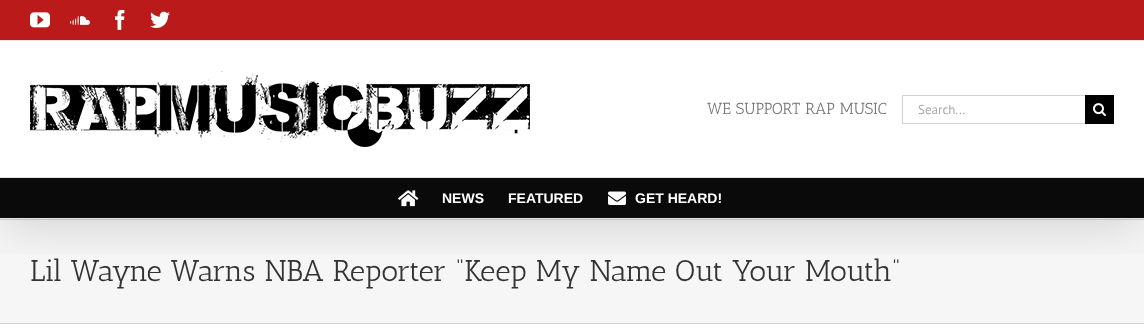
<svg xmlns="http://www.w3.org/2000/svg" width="1144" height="331">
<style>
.a{font:16px Antic Slab;fill:#747474}
.b{font:13px PT Sans;fill:#aaa9a9}
.c{font:bold 14px Liberation Sans;fill:#fff}
.d{font:30px Antic Slab;fill:#333}
</style>
<defs>
<clipPath id="clip1"><path d="M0 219h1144v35H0z"/></clipPath>
</defs>
<rect width="100%" height="100%" fill="#fff"/>
<path fill="#f6f6f6" d="M0 220h1144v103H0z"/>
<path fill="#d2d3d4" d="M0 219h1144v1H0z"/>
<g clip-path="url(#clip1)">
<path fill="#00000024" filter="blur(25px)" d="M2 12h1140v215H2z"/>
</g>
<path fill="#ba1a1a" d="M0 0h1144v40H0z"/>
<path fill="#e5e5e5" d="M0 40h1144v1H0z"/>
<image href="1.png" x="30" y="12" width="20" height="16"/>
<image href="2.png" x="70" y="16" width="20" height="9"/>
<image href="3.png" x="115" y="10" width="10" height="20"/>
<image href="4.png" x="150" y="11" width="20" height="17"/>
<path fill="#e5e5e5" d="M0 177h1144v1H0z"/>
<image href="5.png" x="30" y="71" width="500" height="76"/>
<path fill="#d2d2d2" d="M902 95h183v1H902z"/>
<path fill="#d2d2d2" d="M902 123h183v1H902z"/>
<path fill="#d2d2d2" d="M902 95h1v29H902z"/>
<path fill="#000" d="M1085 95h29v29H1085z"/>
<image href="6.png" x="1093" y="103" width="13" height="14"/>
<path fill="#0a0a0a" d="M0 178h1144v40H0z"/>
<path fill="#e5e5e5" d="M0 218h1144v1H0z"/>
<image href="7.png" x="398" y="190" width="21" height="17"/>
<image href="8.png" x="608" y="191" width="18" height="14"/>
<path fill="#d2d3d4" d="M0 323h1144v1H0z"/>
<text class="a" x="707" y="114">WE SUPPORT RAP MUSIC</text>
<text class="b" x="918" y="114">Search...</text>
<text class="c" x="442" y="203">NEWS</text>
<text class="c" x="508" y="203">FEATURED</text>
<text class="c" x="635" y="203">GET HEARD!</text>
<text class="d" x="30" y="281">Lil Wayne Warns NBA Reporter “Keep My Name Out Your Mouth”</text>
</svg>
